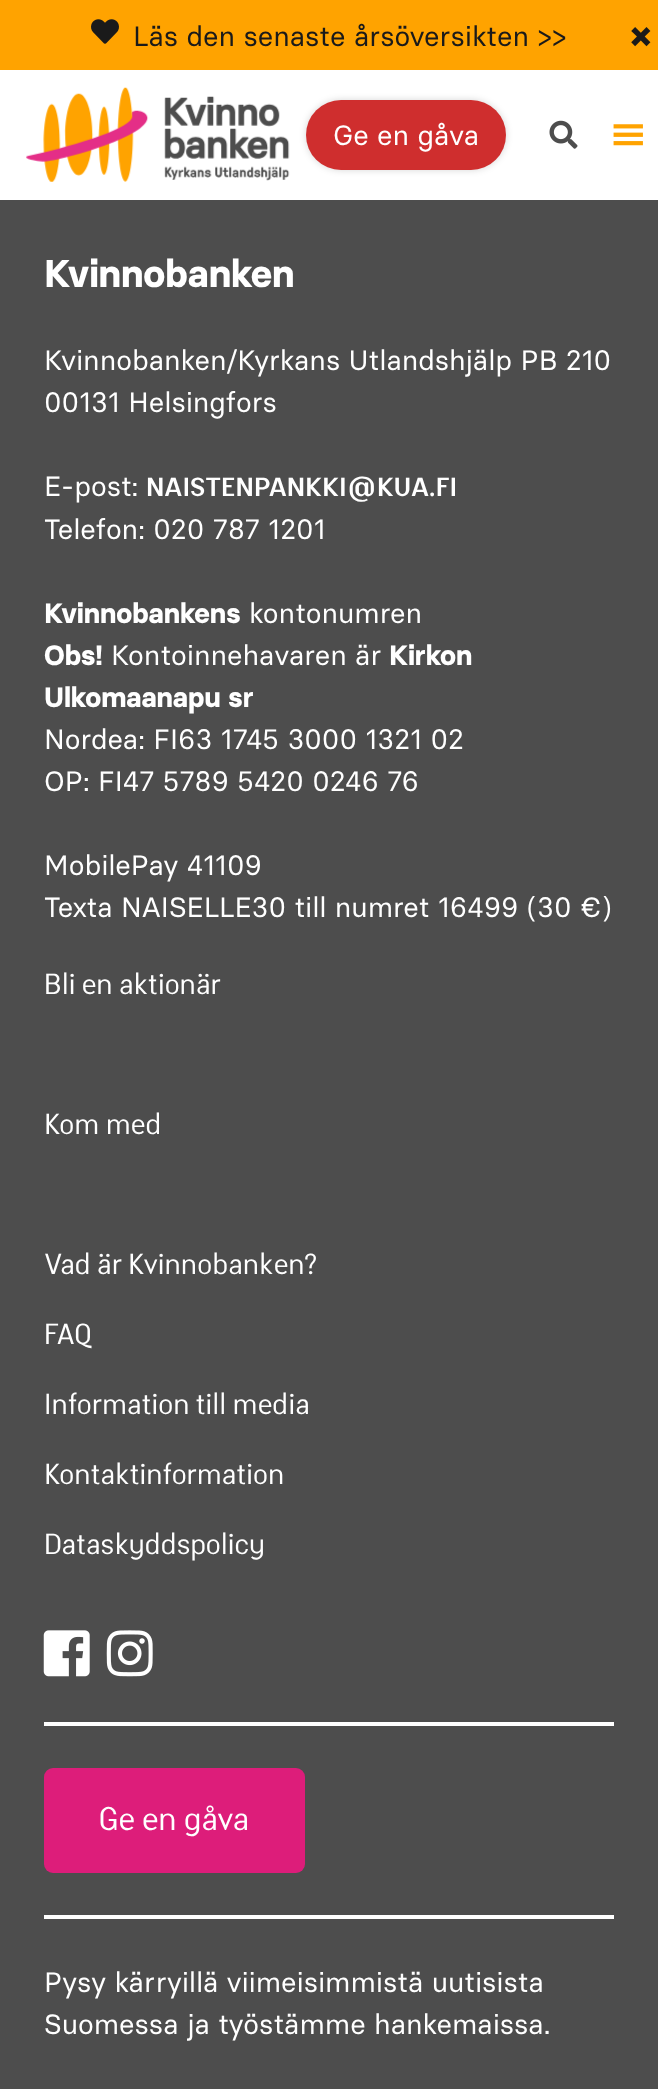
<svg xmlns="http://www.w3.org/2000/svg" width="658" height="2089">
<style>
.a{font:28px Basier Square;fill:#1a1a1a}
.b{font:bold 42px Basier Square;fill:#1a1a1a}
.c{font:28px Basier Square;fill:#fff}
.d{font:bold 38.5px Basier Square;fill:#fff}
.e{font:bold 25.25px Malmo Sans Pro;fill:#fff}
.f{font:bold 28px Basier Square;fill:#fff}
.g{font:28px Malmo Sans Pro;fill:#fff}
.h{font:31.5px Malmo Sans Pro;fill:#fff}
</style>
<rect width="100%" height="100%" fill="#4d4d4d"/>
<path fill="#ffa300" d="M0 0h658v70H0z"/>
<image href="1.png" x="91" y="19" width="28" height="25"/>
<path fill="#fff" d="M0 70h658v130H0z"/>
<image href="2.png" x="26" y="87" width="264" height="95"/>
<rect fill="#00000029" filter="blur(3.5px)" x="306" y="100" width="200" height="70" rx="35"/>
<rect fill="#cf2e2e" x="306" y="100" width="200" height="70" rx="35"/>
<image href="3.png" x="549" y="120" width="29" height="29"/>
<image href="4.png" x="613" y="124" width="30" height="22"/>
<image href="5.png" x="43" y="1630" width="47" height="47"/>
<image href="6.png" x="106" y="1630" width="47" height="47"/>
<path fill="#fff" d="M44 1722h570v4H44z"/>
<rect fill="#dd1d7a" x="44" y="1768" width="261" height="105" rx="9"/>
<path fill="#fff" d="M44 1915h570v4H44z"/>
<text class="a" x="133" y="46">Läs den senaste årsöversikten &gt;&gt;</text>
<text class="b" x="631" y="50">×</text>
<text class="c" x="333" y="145">Ge en gåva</text>
<text class="d" x="44" y="287">Kvinnobanken</text>
<text class="c" x="44" y="370">Kvinnobanken/Kyrkans Utlandshjälp PB 210</text>
<text class="c" x="44" y="412">00131 Helsingfors</text>
<text class="c" x="44" y="496">E-post:</text>
<text class="e" x="146" y="496">NAISTENPANKKI@KUA.FI</text>
<text class="c" x="44" y="539">Telefon: 020 787 1201</text>
<text class="f" x="44" y="623">Kvinnobankens</text>
<text class="c" x="249" y="623">kontonumren</text>
<text class="f" x="44" y="665">Obs!</text>
<text class="c" x="111" y="665">Kontoinnehavaren är</text>
<text class="f" x="389" y="665">Kirkon</text>
<text class="f" x="44" y="707">Ulkomaanapu sr</text>
<text class="c" x="44" y="749">Nordea: FI63 1745 3000 1321 02</text>
<text class="c" x="44" y="791">OP: FI47 5789 5420 0246 76</text>
<text class="c" x="44" y="875">MobilePay 41109</text>
<text class="c" x="44" y="917">Texta NAISELLE30 till numret 16499 (30 €)</text>
<text class="g" x="44" y="994">Bli en aktionär</text>
<text class="g" x="44" y="1134">Kom med</text>
<text class="g" x="44" y="1274">Vad är Kvinnobanken?</text>
<text class="g" x="44" y="1344">FAQ</text>
<text class="g" x="44" y="1414">Information till media</text>
<text class="g" x="44" y="1484">Kontaktinformation</text>
<text class="g" x="44" y="1554">Dataskyddspolicy</text>
<text class="h" x="99" y="1830">Ge en gåva</text>
<text class="c" x="44" y="1992">Pysy kärryillä viimeisimmistä uutisista</text>
<text class="c" x="44" y="2034">Suomessa ja työstämme hankemaissa.</text>
</svg>
